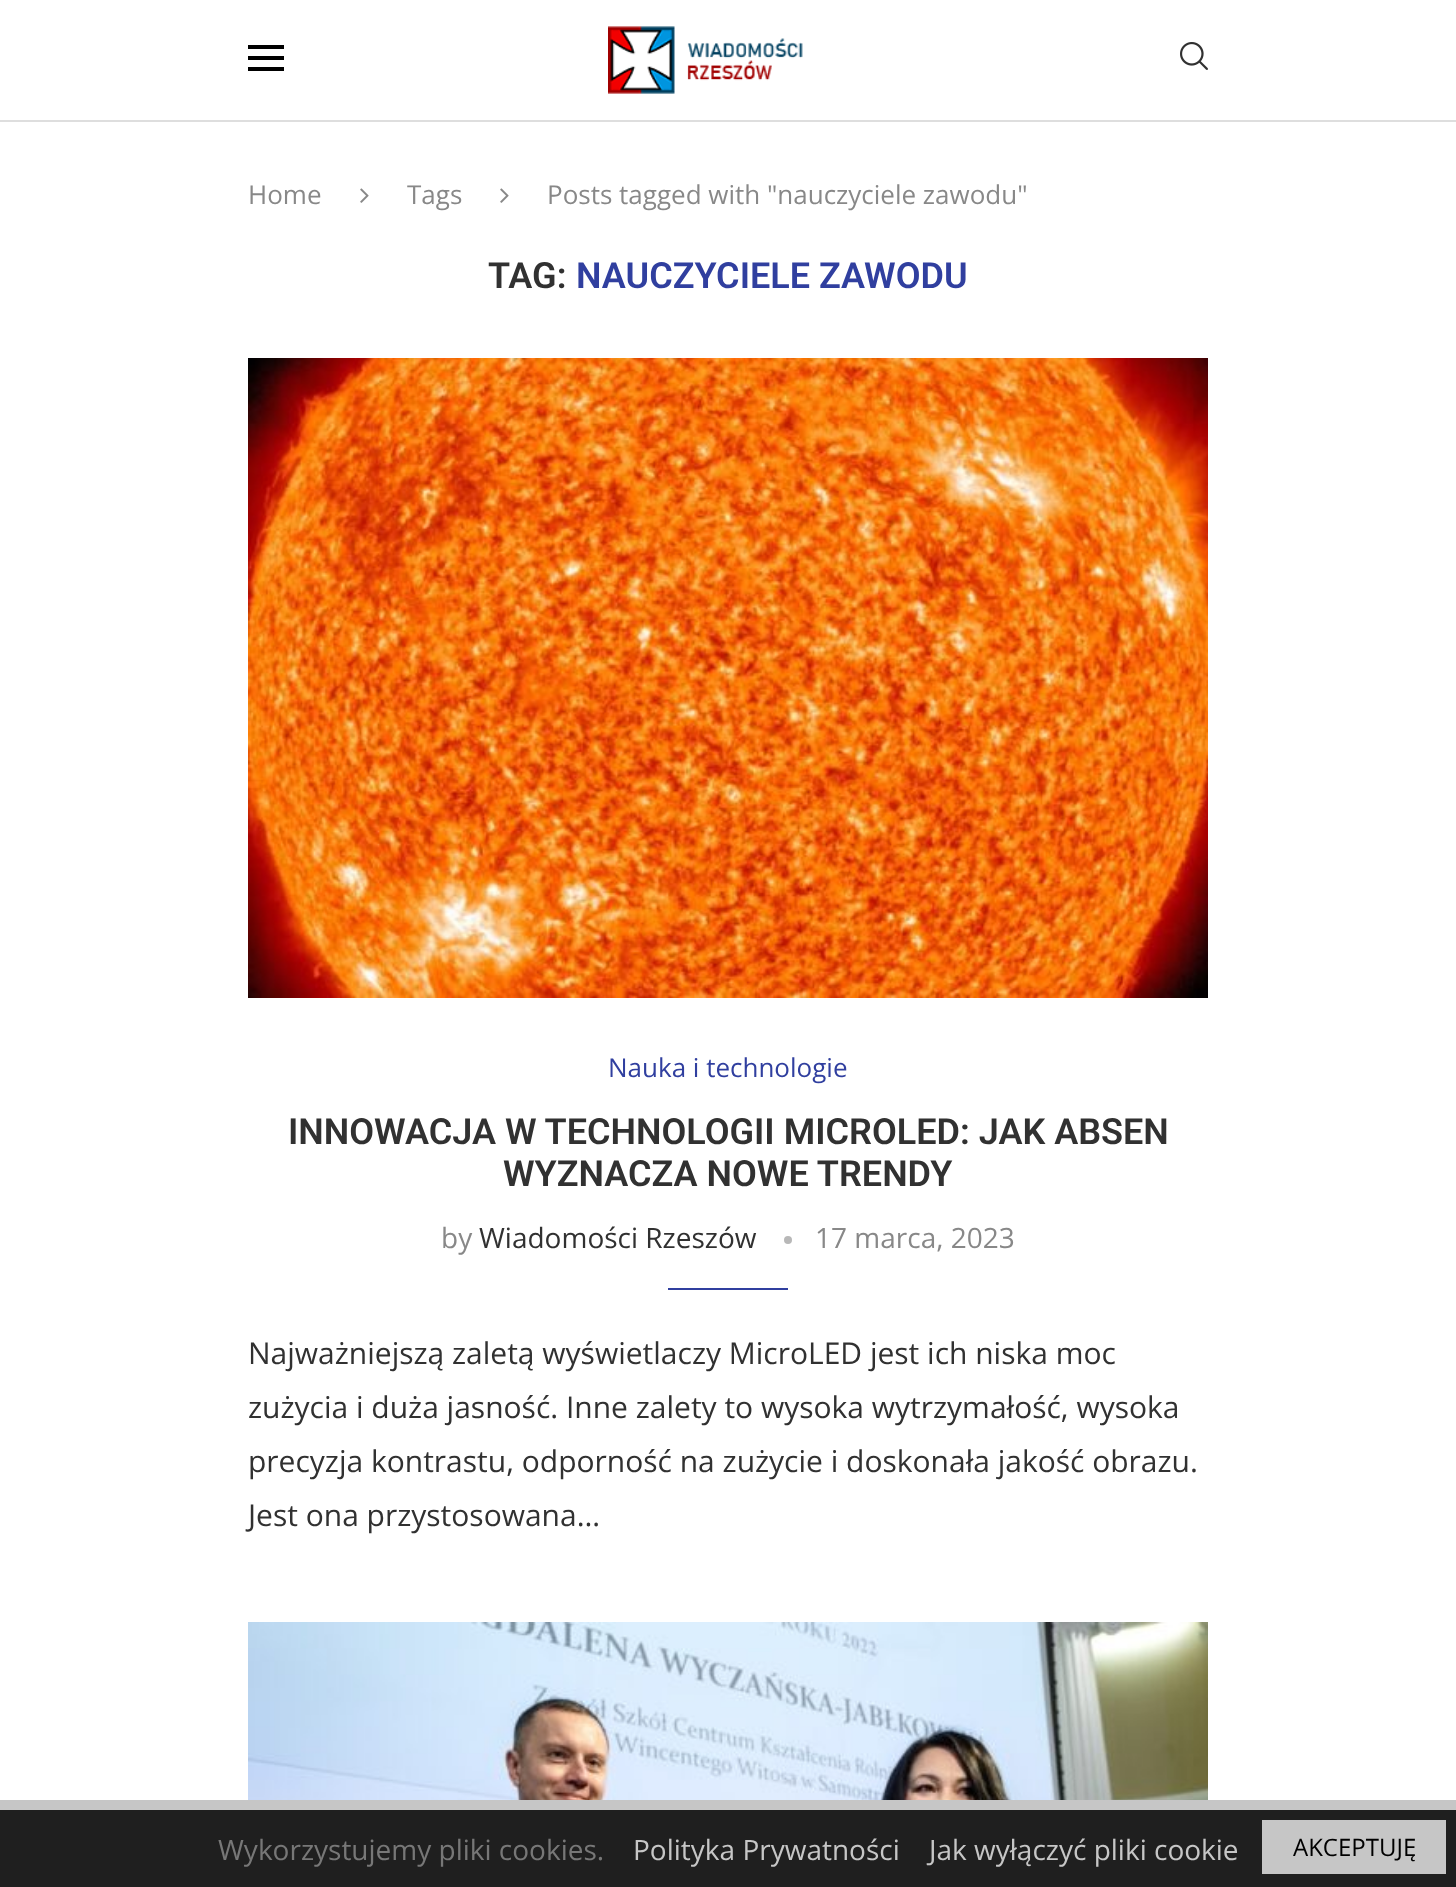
<svg xmlns="http://www.w3.org/2000/svg" width="1456" height="1887">
<style>
.a{font:26px Open Sans;fill:#888}
.b{font:600 36px Roboto;fill:#313131}
.c{font:600 36px Roboto;fill:#303f9f}
.d{font:26px Open Sans;fill:#303f9f}
.e{font:28px Open Sans;fill:#888}
.f{font:28px Open Sans;fill:#313131}
.g{font:30px Open Sans;fill:#313131}
.h{font:28px Open Sans;fill:#777}
.i{font:28px Open Sans;fill:#c6c6c6}
.j{font:24px Open Sans;fill:#000}
</style>
<rect width="100%" height="100%" fill="#fff"/>
<path fill="#dedede" d="M0 120h1456v2H0z"/>
<path fill="#000" d="M248 45h36v4H248z"/>
<path fill="#000" d="M248 56h36v4H248z"/>
<path fill="#000" d="M248 67h36v4H248z"/>
<image href="1.png" x="608" y="26" width="195" height="68"/>
<image href="2.png" x="1180" y="42" width="28" height="28"/>
<image href="3.png" x="360" y="188" width="9" height="15"/>
<image href="3.png" x="500" y="188" width="9" height="15"/>
<image href="4.png" x="248" y="358" width="960" height="640"/>
<circle fill="#b8b8b8" cx="788" cy="1240" r="4"/>
<path fill="#303f9f" d="M668 1288h120v2H668z"/>
<image href="5.png" x="248" y="1622" width="960" height="178"/>
<path fill="#1f1f1f" d="M0 1810h1456v77H0z"/>
<path fill="#c6c6c6" d="M0 1800h1456v10H0z"/>
<path fill="#c6c6c6" d="M1262 1820h184v54H1262z"/>
<text class="a" x="248" y="204">Home</text>
<text class="a" x="407" y="204">Tags</text>
<text class="a" x="547" y="204">Posts tagged with "nauczyciele zawodu"</text>
<text class="b" x="488" y="288">TAG:</text>
<text class="c" x="576" y="288">NAUCZYCIELE ZAWODU</text>
<text class="d" x="608" y="1077">Nauka i technologie</text>
<text class="b" x="288" y="1144">INNOWACJA W TECHNOLOGII MICROLED: JAK ABSEN</text>
<text class="b" x="503" y="1186">WYZNACZA NOWE TRENDY</text>
<text class="e" x="441" y="1248">by</text>
<text class="f" x="479" y="1248">Wiadomości Rzeszów</text>
<text class="e" x="815" y="1248">17 marca, 2023</text>
<text class="g" x="248" y="1364">Najważniejszą zaletą wyświetlaczy MicroLED jest ich niska moc</text>
<text class="g" x="248" y="1418">zużycia i duża jasność. Inne zalety to wysoka wytrzymałość, wysoka</text>
<text class="g" x="248" y="1472">precyzja kontrastu, odporność na zużycie i doskonała jakość obrazu.</text>
<text class="g" x="248" y="1526">Jest ona przystosowana…</text>
<text class="h" x="218" y="1860">Wykorzystujemy pliki cookies.</text>
<text class="i" x="633" y="1860">Polityka Prywatności</text>
<text class="i" x="929" y="1860">Jak wyłączyć pliki cookie</text>
<text class="j" x="1293" y="1856">AKCEPTUJĘ</text>
</svg>
